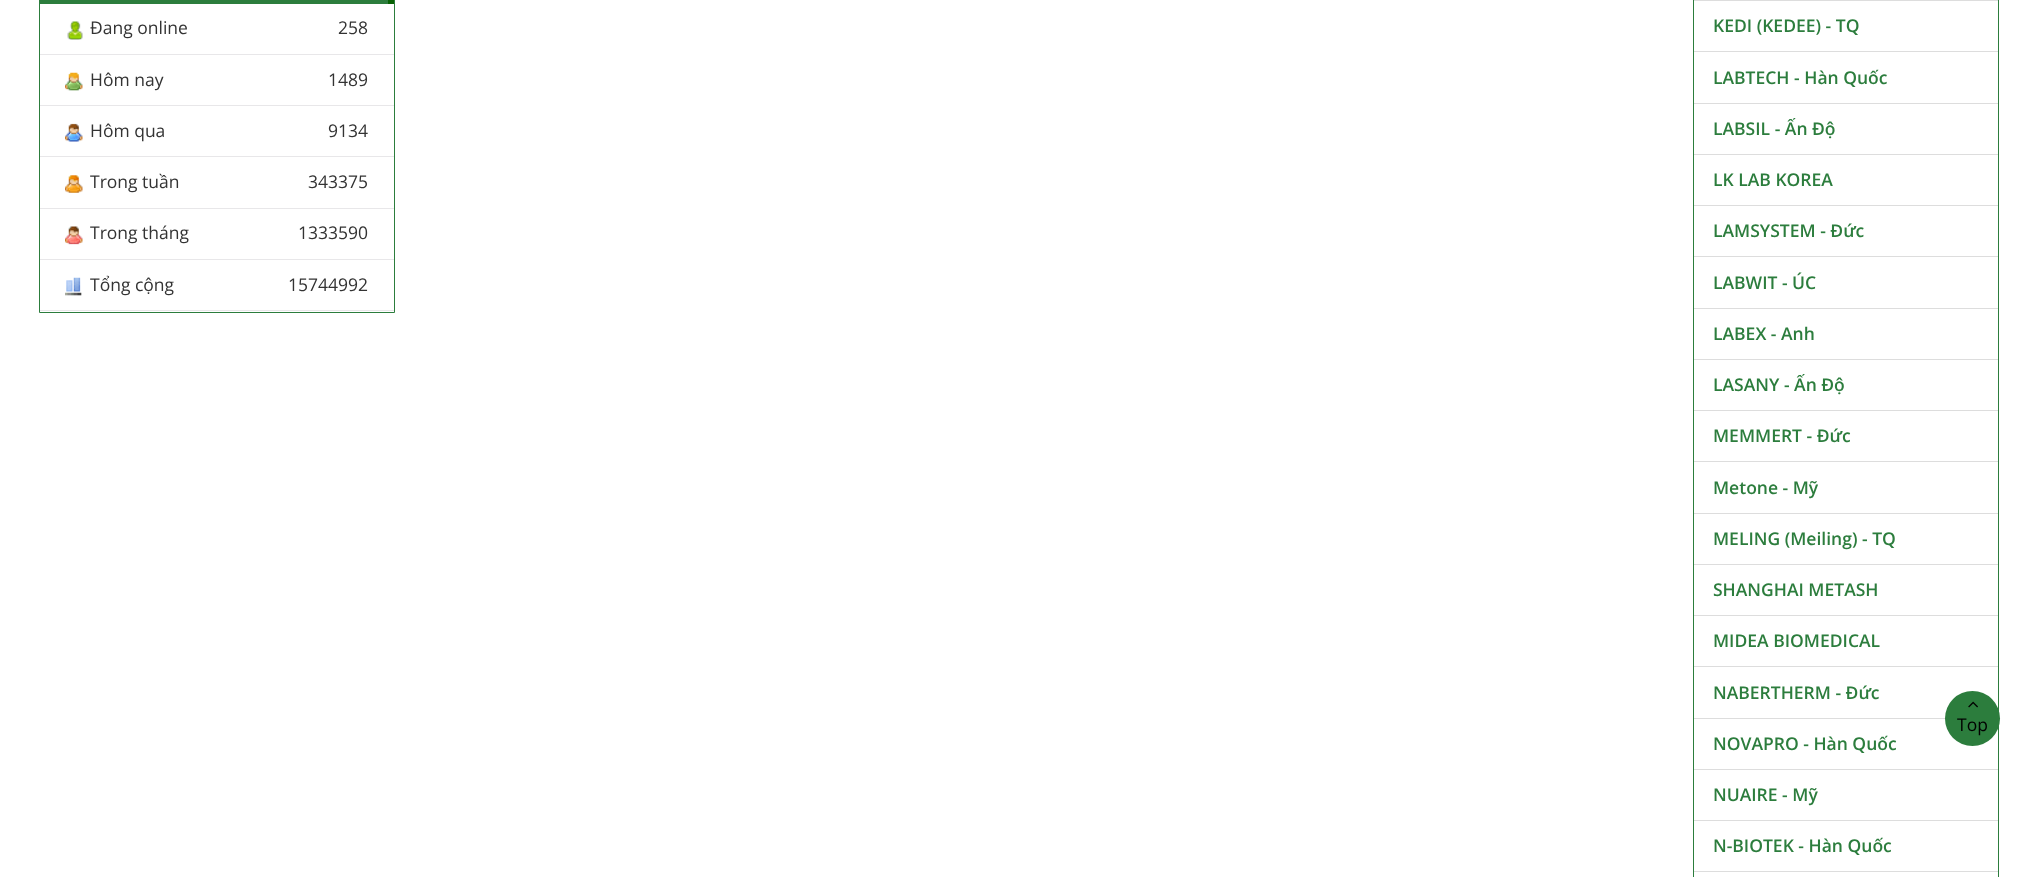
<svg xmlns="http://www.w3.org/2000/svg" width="2037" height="877">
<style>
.a{font:17.5px Open Sans;fill:#333}
.b{font:600 17.5px Open Sans;fill:#2c7d3d}
.c{font:17.5px Open Sans;fill:#000}
</style>
<rect width="100%" height="100%" fill="#fff"/>
<path fill="none" stroke="#2c7d3d" d="M39.5 -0.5h355v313H39.5z"/>
<path fill="#2c7d3d" d="M40 0h354v4H40z"/>
<path fill="#076103" d="M388 0h6v4H388z"/>
<path fill="#e8e7e9" d="M40 54h354v1H40z"/>
<image href="1.png" x="67" y="21" width="16" height="19"/>
<path fill="#e8e7e9" d="M40 105h354v1H40z"/>
<image href="2.png" x="65" y="72" width="18" height="19"/>
<path fill="#e8e7e9" d="M40 156h354v1H40z"/>
<image href="3.png" x="65" y="123" width="18" height="19"/>
<path fill="#e8e7e9" d="M40 208h354v1H40z"/>
<image href="4.png" x="65" y="175" width="18" height="18"/>
<path fill="#e8e7e9" d="M40 259h354v1H40z"/>
<image href="5.png" x="65" y="226" width="18" height="19"/>
<path fill="#e8e7e9" d="M40 310h354v1H40z"/>
<image href="6.png" x="65" y="277" width="17" height="19"/>
<path fill="none" stroke="#2c7d3d" d="M1693.5 -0.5h305v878H1693.5z"/>
<path fill="#ddd" d="M1694 0h304v1H1694z"/>
<path fill="#ddd" d="M1694 51h304v1H1694z"/>
<path fill="#ddd" d="M1694 103h304v1H1694z"/>
<path fill="#ddd" d="M1694 154h304v1H1694z"/>
<path fill="#ddd" d="M1694 205h304v1H1694z"/>
<path fill="#ddd" d="M1694 256h304v1H1694z"/>
<path fill="#ddd" d="M1694 308h304v1H1694z"/>
<path fill="#ddd" d="M1694 359h304v1H1694z"/>
<path fill="#ddd" d="M1694 410h304v1H1694z"/>
<path fill="#ddd" d="M1694 461h304v1H1694z"/>
<path fill="#ddd" d="M1694 513h304v1H1694z"/>
<path fill="#ddd" d="M1694 564h304v1H1694z"/>
<path fill="#ddd" d="M1694 615h304v1H1694z"/>
<path fill="#ddd" d="M1694 666h304v1H1694z"/>
<path fill="#ddd" d="M1694 718h252v1H1694z"/>
<path fill="#ddd" d="M1694 769h304v1H1694z"/>
<path fill="#ddd" d="M1694 820h304v1H1694z"/>
<path fill="#ddd" d="M1694 871h304v1H1694z"/>
<circle fill="#2c7d3d" cx="1972.5" cy="718.5" r="27.5"/>
<image href="7.png" x="1968" y="701" width="10" height="7"/>
<text class="a" x="90" y="34">Đang online</text>
<text class="a" x="338" y="34">258</text>
<text class="a" x="90" y="86">Hôm nay</text>
<text class="a" x="328" y="86">1489</text>
<text class="a" x="90" y="137">Hôm qua</text>
<text class="a" x="328" y="137">9134</text>
<text class="a" x="90" y="188">Trong tuần</text>
<text class="a" x="308" y="188">343375</text>
<text class="a" x="90" y="239">Trong tháng</text>
<text class="a" x="298" y="239">1333590</text>
<text class="a" x="90" y="291">Tổng cộng</text>
<text class="a" x="288" y="291">15744992</text>
<text class="b" x="1713" y="32">KEDI (KEDEE) - TQ</text>
<text class="b" x="1713" y="84">LABTECH - Hàn Quốc</text>
<text class="b" x="1713" y="135">LABSIL - Ấn Độ</text>
<text class="b" x="1713" y="186">LK LAB KOREA</text>
<text class="b" x="1713" y="237">LAMSYSTEM - Đức</text>
<text class="b" x="1713" y="289">LABWIT - ÚC</text>
<text class="b" x="1713" y="340">LABEX - Anh</text>
<text class="b" x="1713" y="391">LASANY - Ấn Độ</text>
<text class="b" x="1713" y="442">MEMMERT - Đức</text>
<text class="b" x="1713" y="494">Metone - Mỹ</text>
<text class="b" x="1713" y="545">MELING (Meiling) - TQ</text>
<text class="b" x="1713" y="596">SHANGHAI METASH</text>
<text class="b" x="1713" y="647">MIDEA BIOMEDICAL</text>
<text class="b" x="1713" y="699">NABERTHERM - Đức</text>
<text class="b" x="1713" y="750">NOVAPRO - Hàn Quốc</text>
<text class="b" x="1713" y="801">NUAIRE - Mỹ</text>
<text class="b" x="1713" y="852">N-BIOTEK - Hàn Quốc</text>
<text class="c" x="1957" y="731">Top</text>
</svg>
